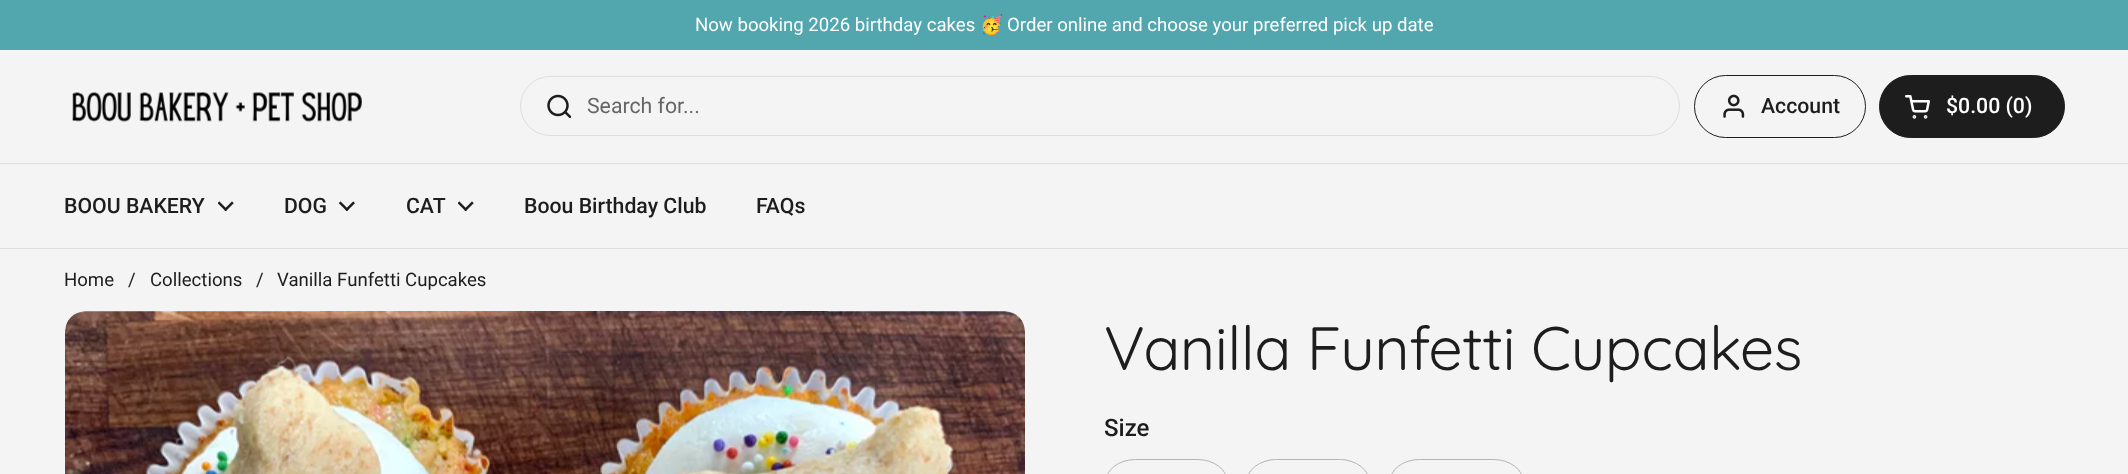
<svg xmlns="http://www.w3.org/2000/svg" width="2128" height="474">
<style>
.a{font:18.6px Roboto;fill:#fff}
.b{font:18.6px Noto Color Emoji;fill:#fff}
.c{font:21.25px Roboto;fill:#666}
.d{font:500 21.25px Roboto;fill:#1d1d1d}
.e{font:500 21.25px Roboto;fill:#fff}
.f{font:18.6px Roboto;fill:#1d1d1d}
.g{font:61.25px Quicksand;letter-spacing:-0.6px;fill:#1d1d1d}
.h{font:500 24px Roboto;fill:#1d1d1d}
</style>
<rect width="100%" height="100%" fill="#f4f4f4"/>
<path fill="#52a7ae" d="M0 0h2128v50H0z"/>
<path fill="#dedede" d="M0 163h2128v1H0z"/>
<image href="1.png" x="72" y="92" width="290" height="30"/>
<rect fill="none" stroke="#dedede" x="520.5" y="76.5" width="1159" height="59" rx="29.5"/>
<image href="2.png" x="547" y="94" width="25" height="24"/>
<rect fill="none" stroke="#1d1d1d" x="1694.5" y="75.5" width="171" height="62" rx="31"/>
<image href="3.png" x="1723" y="94" width="22" height="24"/>
<rect fill="#1d1d1d" stroke="#1d1d1d" x="1879.5" y="75.5" width="185" height="62" rx="31"/>
<image href="4.png" x="1905" y="95" width="25" height="24"/>
<path fill="#dedede" d="M0 248h2128v1H0z"/>
<image href="5.png" x="218" y="201" width="16" height="10"/>
<image href="6.png" x="339" y="201" width="16" height="10"/>
<image href="5.png" x="458" y="201" width="16" height="10"/>
<image href="7.png" x="65" y="311" width="960" height="163"/>
<rect fill="none" stroke="#b4b4b4" x="1105.5" y="459.5" width="122" height="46" rx="30"/>
<rect fill="none" stroke="#b4b4b4" x="1246.5" y="459.5" width="123" height="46" rx="30"/>
<rect fill="none" stroke="#b4b4b4" x="1389.5" y="459.5" width="134" height="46" rx="30"/>
<text class="a" x="695" y="31">Now booking 2026 birthday cakes</text>
<text class="b" x="980" y="31">🥳</text>
<text class="a" x="1007" y="31">Order online and choose your preferred pick up date</text>
<text class="c" x="587" y="113">Search for...</text>
<text class="d" x="1761" y="113">Account</text>
<text class="e" x="1946" y="113">$0.00 (0)</text>
<text class="d" x="64" y="213">BOOU BAKERY</text>
<text class="d" x="284" y="213">DOG</text>
<text class="d" x="406" y="213">CAT</text>
<text class="d" x="524" y="213">Boou Birthday Club</text>
<text class="d" x="756" y="213">FAQs</text>
<text class="f" x="64" y="286">Home</text>
<text class="f" x="128" y="286">/</text>
<text class="f" x="150" y="286">Collections</text>
<text class="f" x="256" y="286">/</text>
<text class="f" x="277" y="286">Vanilla Funfetti Cupcakes</text>
<text class="g" x="1104" y="370">Vanilla Funfetti Cupcakes</text>
<text class="h" x="1104" y="436">Size</text>
</svg>
